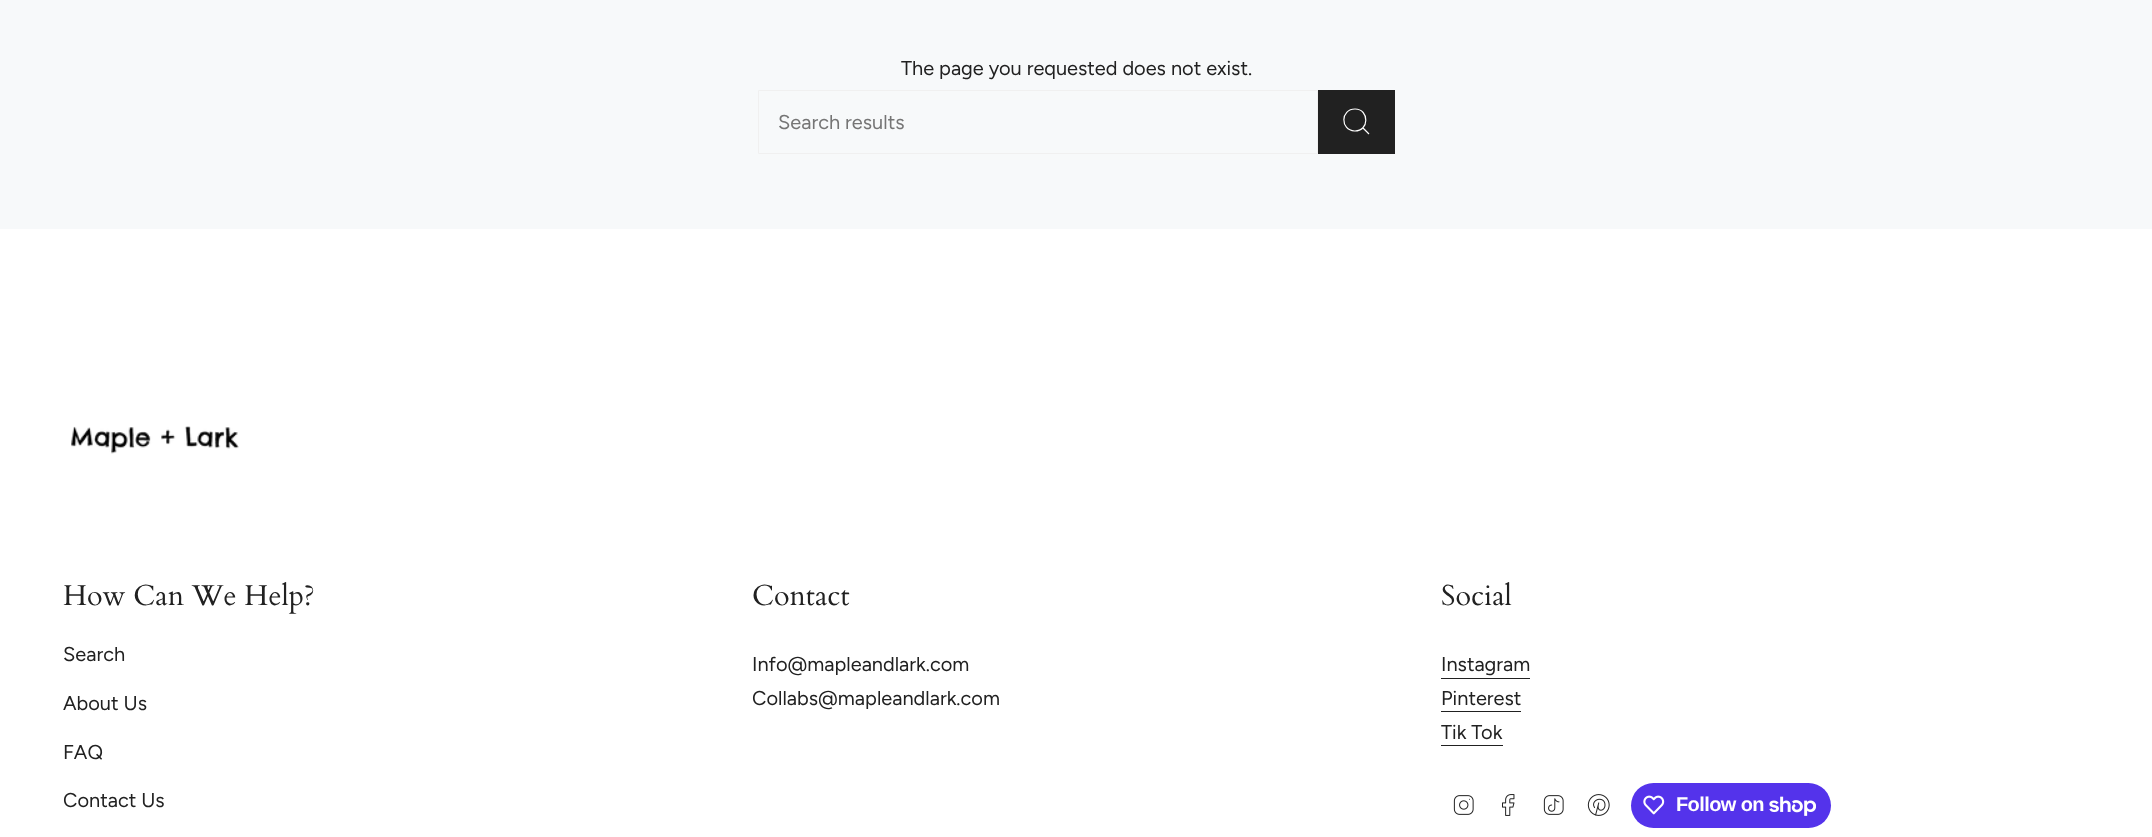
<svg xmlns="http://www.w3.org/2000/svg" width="2152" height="837">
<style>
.a{font:20px Figtree;fill:#212121}
.b{font:20px Figtree;fill:#757575}
.c{font:28.75px Cardo;fill:#212121}
.d{font:bold 20px Liberation Sans;letter-spacing:-0.6px;fill:#fff}
</style>
<rect width="100%" height="100%" fill="#f7f9fa"/>
<path fill="none" stroke="#f0f0f0" d="M758.5 90.5h559v63H758.5z"/>
<path fill="#212121" d="M1318 90h77v64H1318z"/>
<path fill="none" stroke="#fff" stroke-width="1.2" d="M1355 109c14.5 0 14.5 22.5-.5 22c-14.5-1-14-22 .5-22zm7.5 18.5l6.5 6.5"/>
<path fill="#fff" d="M0 229h2152v608H0z"/>
<image href="1.png" x="71" y="426" width="168" height="28"/>
<path fill="#212121" d="M1441 678h89v1H1441z"/>
<path fill="#212121" d="M1441 711h80v1H1441z"/>
<path fill="#212121" d="M1441 745h62v1H1441z"/>
<image href="2.png" x="1453" y="795" width="21" height="20"/>
<image href="3.png" x="1502" y="794" width="13" height="22"/>
<image href="4.png" x="1543" y="795" width="21" height="20"/>
<image href="5.png" x="1587" y="794" width="23" height="22"/>
<rect fill="#5433eb" x="1631" y="783" width="200" height="45" rx="22.5"/>
<image href="6.png" x="1643" y="795" width="22" height="20"/>
<image href="7.png" x="1769" y="796" width="47" height="20"/>
<text class="a" x="901" y="75">The page you requested does not exist.</text>
<text class="b" x="778" y="129">Search results</text>
<text class="c" x="63" y="605">How Can We Help?</text>
<text class="a" x="63" y="661">Search</text>
<text class="a" x="63" y="710">About Us</text>
<text class="a" x="63" y="759">FAQ</text>
<text class="a" x="63" y="807">Contact Us</text>
<text class="c" x="752" y="605">Contact</text>
<text class="a" x="752" y="671">Info@mapleandlark.com</text>
<text class="a" x="752" y="705">Collabs@mapleandlark.com</text>
<text class="c" x="1441" y="605">Social</text>
<text class="a" x="1441" y="671">Instagram</text>
<text class="a" x="1441" y="705">Pinterest</text>
<text class="a" x="1441" y="739">Tik Tok</text>
<text class="d" x="1676" y="811">Follow on</text>
</svg>
